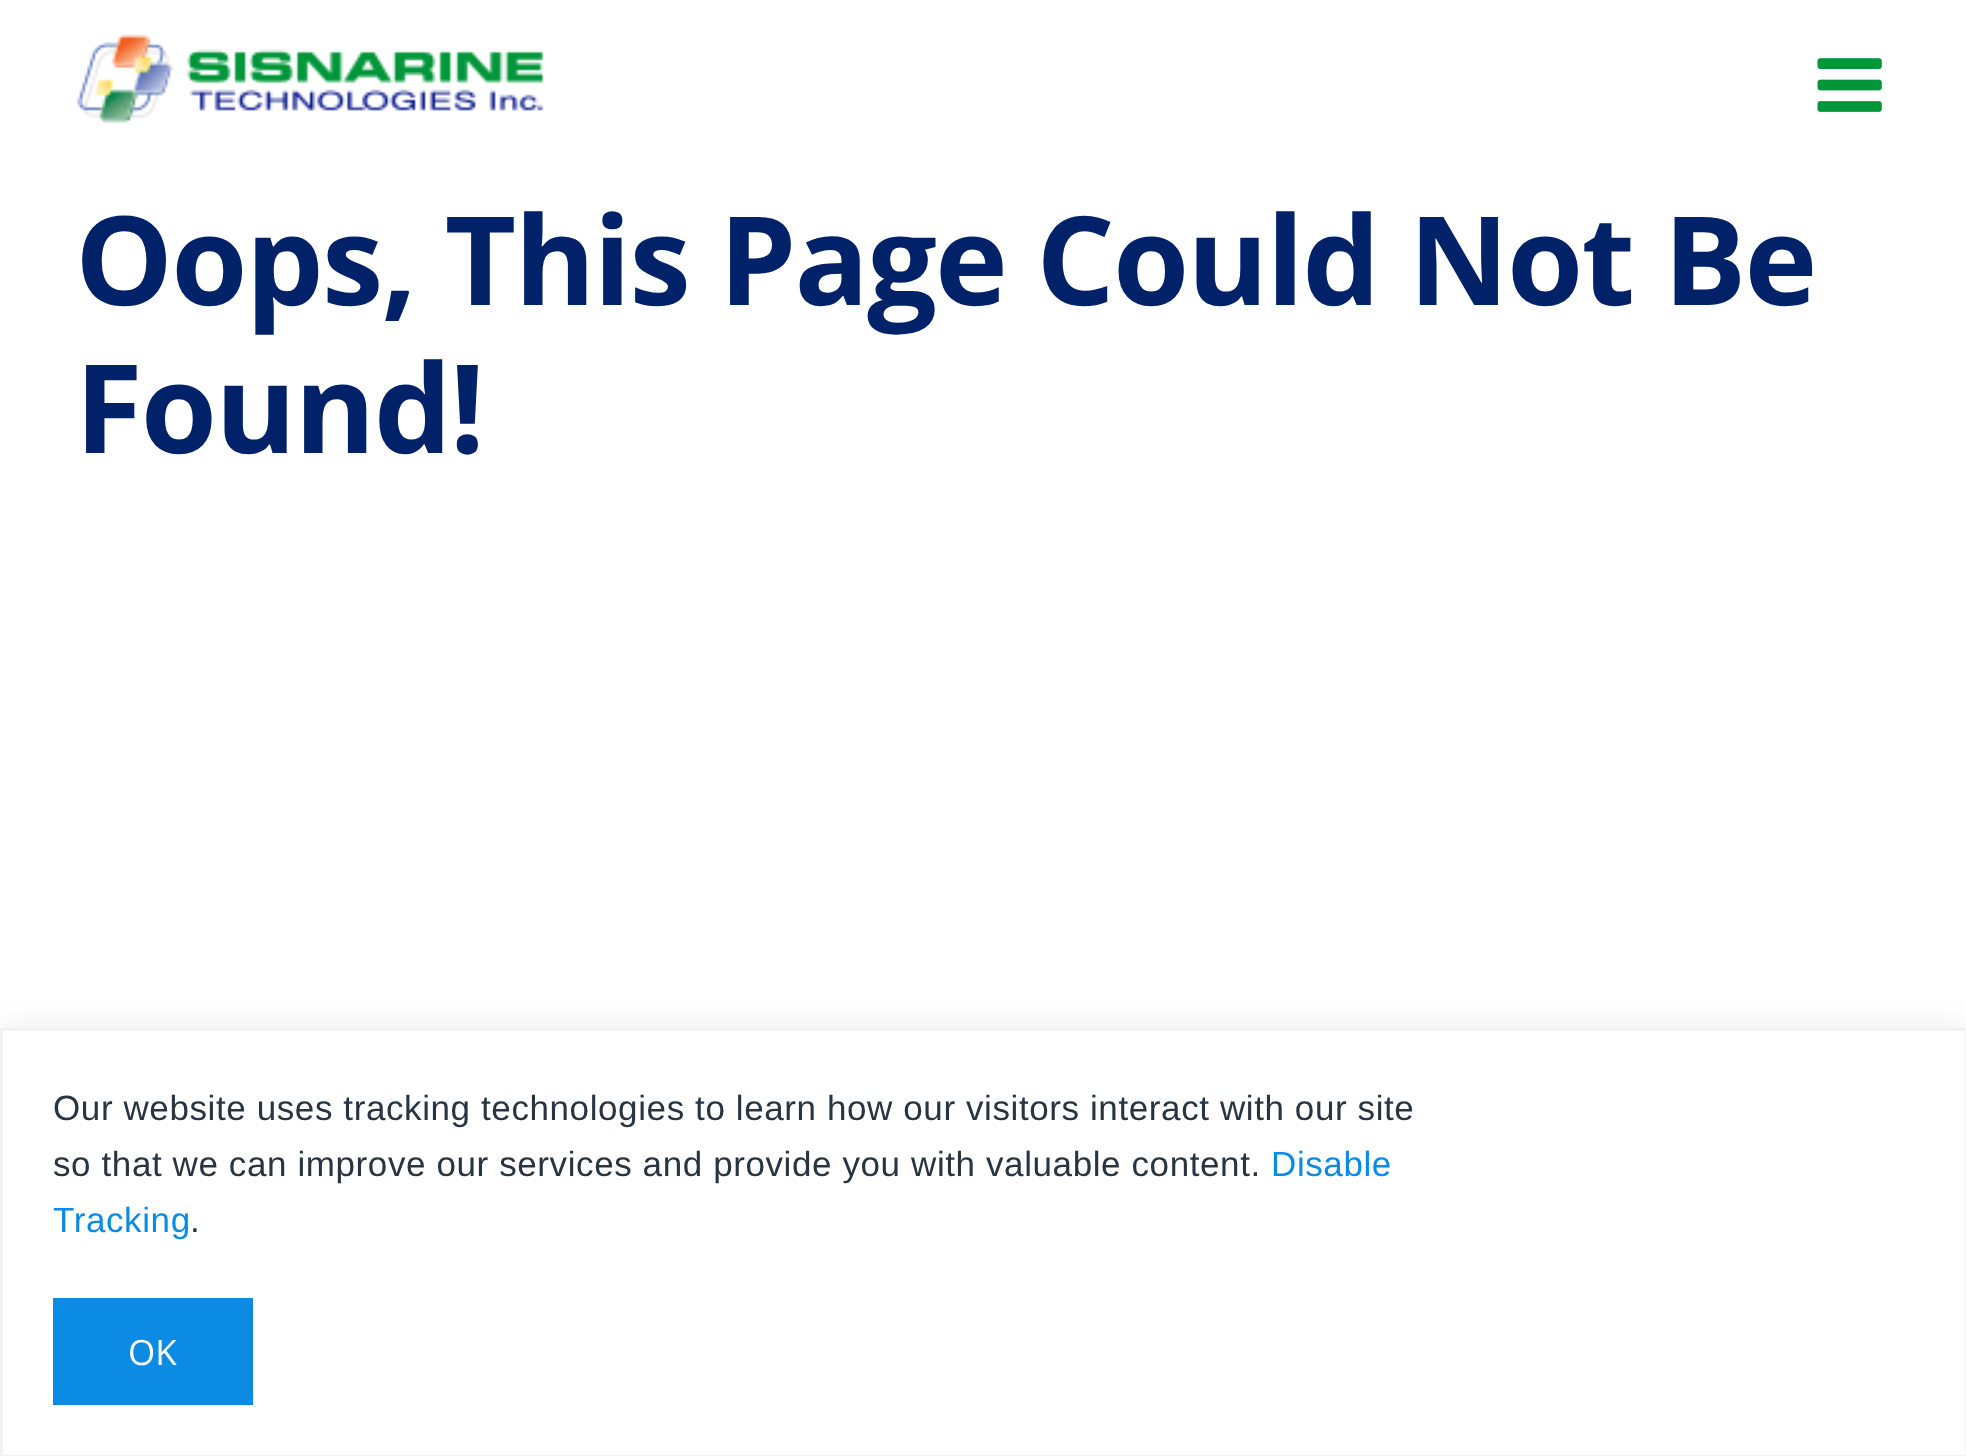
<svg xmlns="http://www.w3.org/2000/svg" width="1966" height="1456">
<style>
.a{font:bold 123.3px Open Sans;letter-spacing:-1.85px;fill:#012169}
.b{font:35px Liberation Sans;letter-spacing:0.6px;fill:#283541}
.c{font:35px Liberation Sans;letter-spacing:0.6px;fill:#0b8be3}
.d{font:35px Open Sans;fill:#fff}
</style>
<rect width="100%" height="100%" fill="#fff"/>
<image href="1.png" x="76" y="34" width="468" height="90"/>
<image href="2.png" x="1817" y="58" width="65" height="54"/>
<path fill="#4a4a4a1a" filter="blur(12.5px)" d="M0 1025h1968v430H0z"/>
<path fill="#fff" stroke="#f2f2f2" stroke-width="3" d="M1.5 1029.5h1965v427H1.5z"/>
<path fill="#0b8be3" d="M53 1298h200v107H53z"/>
<text class="a" x="75" y="305">Oops, This Page Could Not Be</text>
<text class="a" x="75" y="453">Found!</text>
<text class="b" x="53" y="1120">Our website uses tracking technologies to learn how our visitors interact with our site</text>
<text class="b" x="53" y="1176">so that we can improve our services and provide you with valuable content.</text>
<text class="c" x="1271" y="1176">Disable</text>
<text class="c" x="53" y="1232">Tracking</text>
<text class="b" x="190" y="1232">.</text>
<text class="d" x="128" y="1365">OK</text>
</svg>
